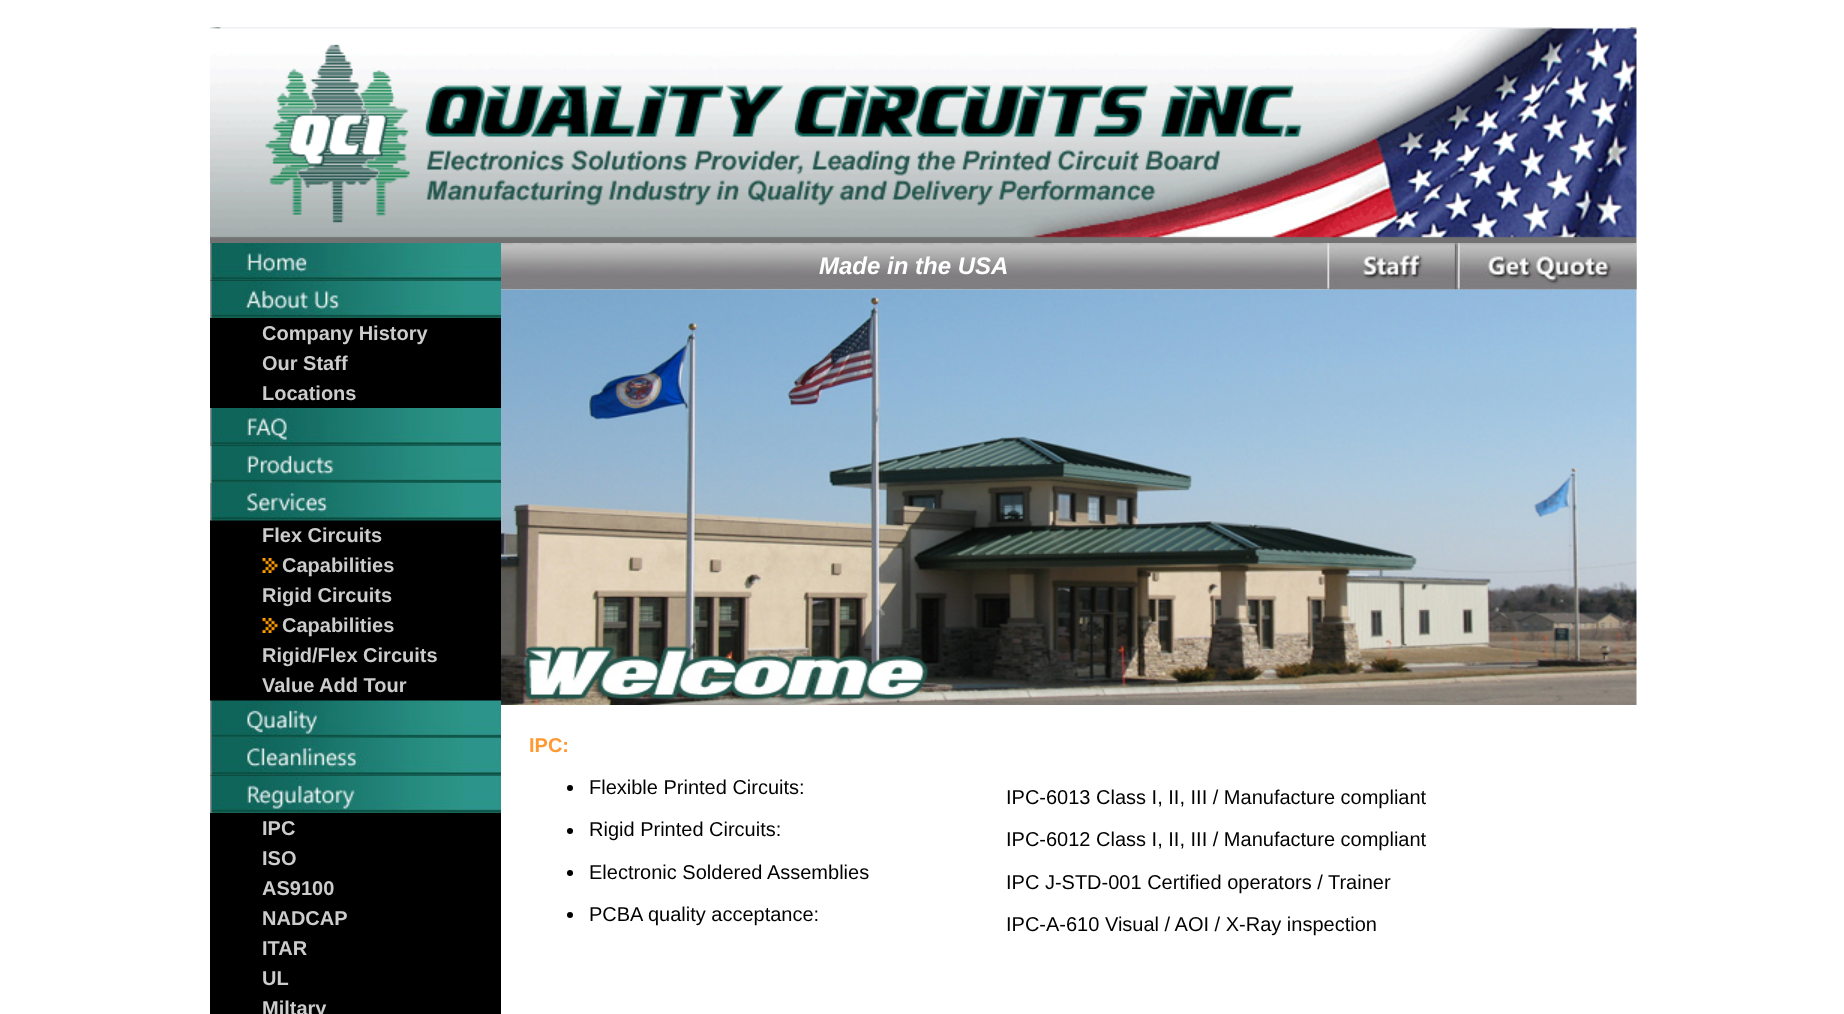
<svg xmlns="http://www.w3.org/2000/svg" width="1844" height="1014">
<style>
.a{font:bold 20px Liberation Sans;fill:#ccc}
.b{font:italic bold 24px Liberation Sans;fill:#fff}
.c{font:bold 20px Liberation Sans;fill:#f93}
.d{font:20px Liberation Sans;fill:#000}
</style>
<rect width="100%" height="100%" fill="#fff"/>
<image href="1.png" x="210" y="27" width="1427" height="216"/>
<path fill="#000" d="M210 280h291v734H210z"/>
<image href="2.png" x="210" y="243" width="291" height="38"/>
<image href="3.png" x="210" y="280" width="291" height="38"/>
<image href="4.png" x="210" y="408" width="291" height="38"/>
<image href="5.png" x="210" y="445" width="291" height="38"/>
<image href="6.png" x="210" y="483" width="291" height="38"/>
<image href="7.png" x="262" y="558" width="16" height="15"/>
<image href="7.png" x="262" y="618" width="16" height="15"/>
<image href="8.png" x="210" y="700" width="291" height="38"/>
<image href="9.png" x="210" y="738" width="291" height="38"/>
<image href="10.png" x="210" y="775" width="291" height="38"/>
<image href="11.png" x="501" y="243" width="1136" height="47"/>
<image href="12.png" x="1327" y="243" width="130" height="47"/>
<image href="13.png" x="1456" y="243" width="181" height="47"/>
<image href="14.png" x="501" y="289" width="1136" height="416"/>
<circle fill="#000" cx="570" cy="788" r="3"/>
<circle fill="#000" cx="570" cy="831" r="3"/>
<circle fill="#000" cx="570" cy="873" r="3"/>
<circle fill="#000" cx="570" cy="915" r="3"/>
<text class="a" x="262" y="340">Company History</text>
<text class="a" x="262" y="370">Our Staff</text>
<text class="a" x="262" y="400">Locations</text>
<text class="a" x="262" y="542">Flex Circuits</text>
<text class="a" x="282" y="572">Capabilities</text>
<text class="a" x="262" y="602">Rigid Circuits</text>
<text class="a" x="282" y="632">Capabilities</text>
<text class="a" x="262" y="662">Rigid/Flex Circuits</text>
<text class="a" x="262" y="692">Value Add Tour</text>
<text class="a" x="262" y="835">IPC</text>
<text class="a" x="262" y="865">ISO</text>
<text class="a" x="262" y="895">AS9100</text>
<text class="a" x="262" y="925">NADCAP</text>
<text class="a" x="262" y="955">ITAR</text>
<text class="a" x="262" y="985">UL</text>
<text class="a" x="262" y="1015">Miltary</text>
<text class="b" x="819" y="274">Made in the USA</text>
<text class="c" x="529" y="752">IPC:</text>
<text class="d" x="589" y="794">Flexible Printed Circuits:</text>
<text class="d" x="1006" y="804">IPC-6013 Class I, II, III / Manufacture compliant</text>
<text class="d" x="589" y="836">Rigid Printed Circuits:</text>
<text class="d" x="1006" y="846">IPC-6012 Class I, II, III / Manufacture compliant</text>
<text class="d" x="589" y="879">Electronic Soldered Assemblies</text>
<text class="d" x="1006" y="889">IPC J-STD-001 Certified operators / Trainer</text>
<text class="d" x="589" y="921">PCBA quality acceptance:</text>
<text class="d" x="1006" y="931">IPC-A-610 Visual / AOI / X-Ray inspection</text>
</svg>
